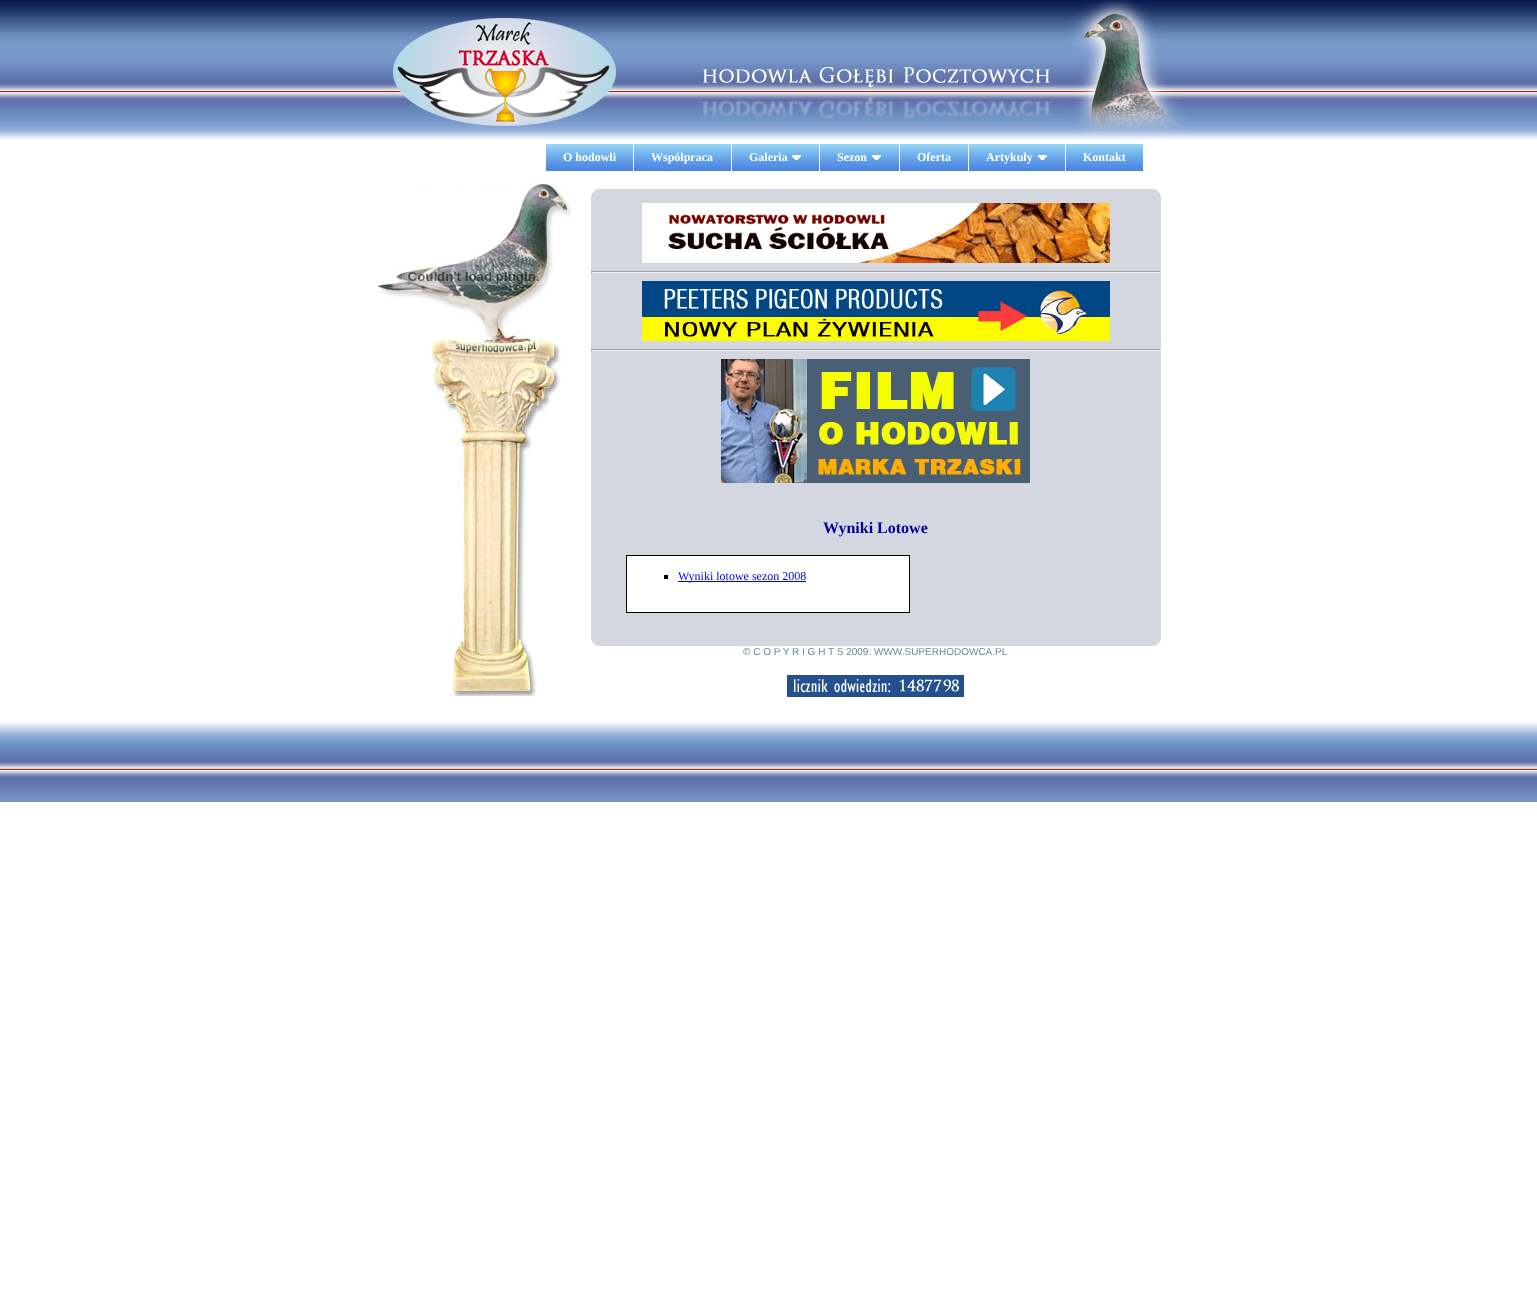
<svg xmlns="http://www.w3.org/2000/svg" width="1537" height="1304">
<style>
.a{font:bold 12px Liberation Serif;fill:#fff}
.b{font:bold 16px Liberation Serif;fill:#009}
.c{font:12px Liberation Serif;fill:#00e}
.d{font:10px Liberation Sans;fill:#6486a2}
</style>
<rect width="100%" height="100%" fill="#fff"/>
<image href="1.png" x="0" y="0" width="1537" height="140"/>
<image href="2.png" x="393" y="18" width="223" height="108"/>
<image href="3.png" x="698" y="0" width="493" height="137"/>
<image href="4.png" x="546" y="144" width="87" height="27"/>
<image href="5.png" x="634" y="144" width="97" height="27"/>
<image href="4.png" x="732" y="144" width="87" height="27"/>
<image href="6.png" x="792" y="155" width="9" height="5"/>
<image href="7.png" x="820" y="144" width="79" height="27"/>
<image href="6.png" x="872" y="155" width="9" height="5"/>
<image href="8.png" x="900" y="144" width="68" height="27"/>
<image href="9.png" x="969" y="144" width="96" height="27"/>
<image href="6.png" x="1038" y="155" width="9" height="5"/>
<image href="10.png" x="1066" y="144" width="77" height="27"/>
<image href="11.png" x="377" y="179" width="194" height="517"/>
<image href="12.png" x="402" y="267" width="143" height="18"/>
<image href="13.png" x="591" y="189" width="15" height="14"/>
<path fill="#d4d6e0" d="M606 189h540v14H606z"/>
<image href="14.png" x="1146" y="189" width="15" height="14"/>
<path fill="#d4d6e0" d="M591 203h570v428H591z"/>
<image href="15.png" x="642" y="203" width="468" height="60"/>
<path fill="#9f9f9f" d="M591 271h570v1H591z"/>
<path fill="#eee" d="M1160 271h1v2H1160z"/>
<path fill="#eee" d="M591 272h570v1H591z"/>
<path fill="#9f9f9f" d="M591 271h1v2H591z"/>
<image href="16.png" x="642" y="281" width="468" height="60"/>
<path fill="#9f9f9f" d="M591 349h570v1H591z"/>
<path fill="#eee" d="M1160 349h1v2H1160z"/>
<path fill="#eee" d="M591 350h570v1H591z"/>
<path fill="#9f9f9f" d="M591 349h1v2H591z"/>
<image href="17.png" x="721" y="359" width="309" height="124"/>
<path fill="#000" d="M626 555h284v58H626z"/>
<path fill="#fff" d="M627 556h282v56H627z"/>
<path fill="#000" d="M664 575h4v4H664z"/>
<path fill="#00e" d="M678 581h128v1H678z"/>
<image href="18.png" x="591" y="631" width="15" height="15"/>
<path fill="#d4d6e0" d="M606 631h540v15H606z"/>
<image href="19.png" x="1146" y="631" width="15" height="15"/>
<image href="20.png" x="787" y="675" width="111" height="22"/>
<path fill="#245090" d="M898 675h66v22H898z"/>
<image href="21.png" x="899" y="679" width="7" height="13"/>
<image href="22.png" x="907" y="679" width="9" height="13"/>
<image href="23.png" x="916" y="679" width="8" height="13"/>
<image href="24.png" x="925" y="679" width="8" height="13"/>
<image href="24.png" x="934" y="679" width="8" height="13"/>
<image href="25.png" x="943" y="679" width="8" height="13"/>
<image href="23.png" x="951" y="679" width="8" height="13"/>
<image href="26.png" x="0" y="722" width="1537" height="80"/>
<text class="a" x="563" y="161">O hodowli</text>
<text class="a" x="651" y="161">Współpraca</text>
<text class="a" x="749" y="161">Galeria</text>
<text class="a" x="837" y="161">Sezon</text>
<text class="a" x="917" y="161">Oferta</text>
<text class="a" x="986" y="161">Artykuły</text>
<text class="a" x="1083" y="161">Kontakt</text>
<text class="b" x="823" y="533">Wyniki Lotowe</text>
<text class="c" x="678" y="580">Wyniki lotowe sezon 2008</text>
<text class="d" x="743" y="655">© C O P Y R I G H T S 2009: WWW.SUPERHODOWCA.PL</text>
</svg>
